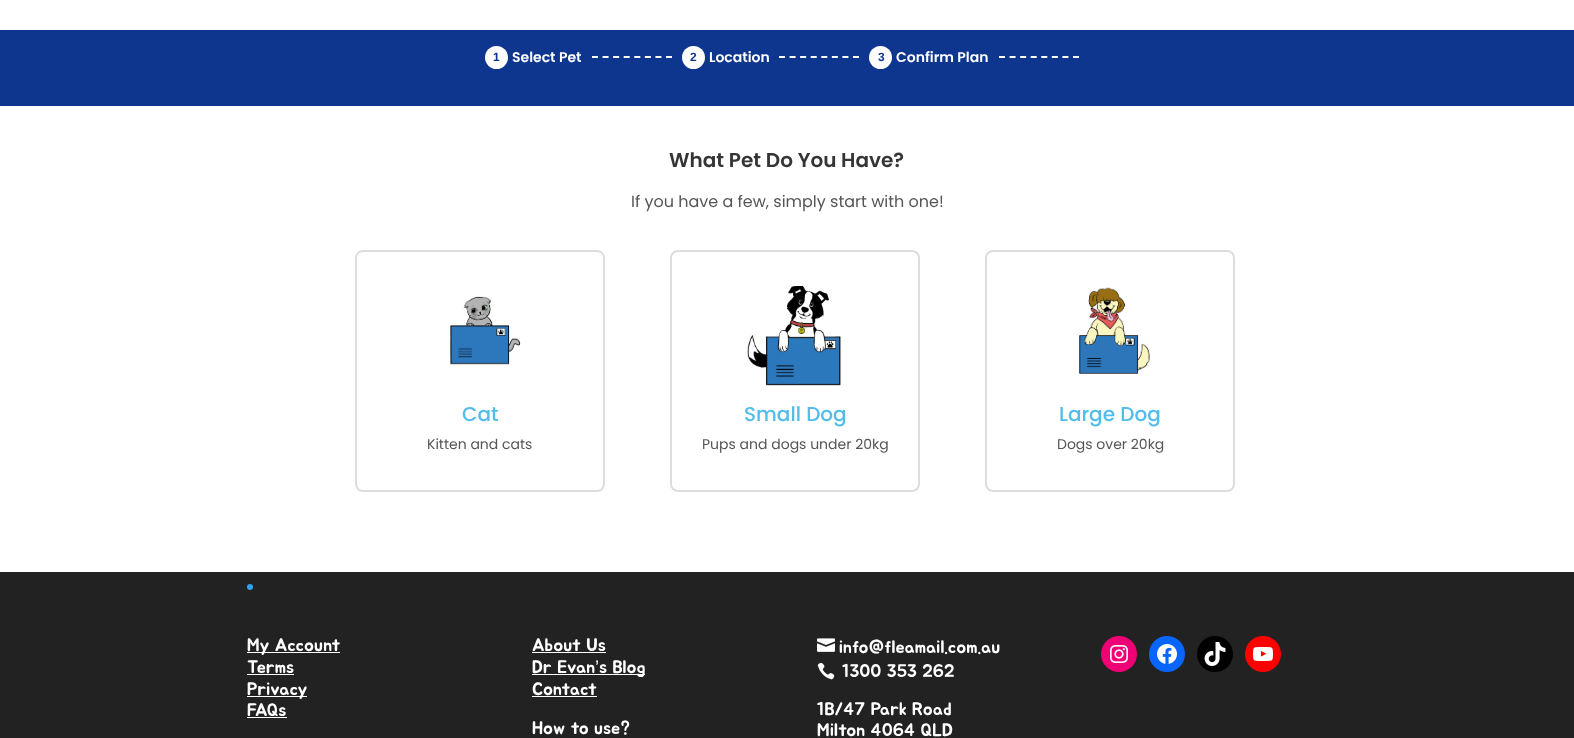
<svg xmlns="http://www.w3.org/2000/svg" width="1574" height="738">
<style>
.a{font:bold 12px Liberation Sans;fill:#0e368f}
.b{font:600 14px Poppins;fill:#fff}
.c{font:600 20px Poppins;fill:#353535}
.d{font:16px Poppins;fill:#565656}
.e{font:500 20px Poppins;fill:#52bcea}
.f{font:14px Poppins;fill:#565656}
.g{font:18px Jua;fill:#fff}
.h{font:18px Liberation Sans;fill:#fff}
</style>
<rect width="100%" height="100%" fill="#fff"/>
<path fill="#0e368f" d="M0 30h1574v76H0z"/>
<circle fill="#fff" cx="496.5" cy="57.5" r="11.5"/>
<path fill="none" stroke="#fff" stroke-width="2" stroke-dasharray="6 4.57" d="M592 57h80"/>
<circle fill="#fff" cx="693.5" cy="57.5" r="11.5"/>
<path fill="none" stroke="#fff" stroke-width="2" stroke-dasharray="6 4.57" d="M779 57h80"/>
<circle fill="#fff" cx="880.5" cy="57.5" r="11.5"/>
<path fill="none" stroke="#fff" stroke-width="2" stroke-dasharray="6 4.57" d="M999 57h80"/>
<rect fill="none" stroke="#ddd" stroke-width="2" x="356" y="251" width="248" height="240" rx="7"/>
<image href="1.png" x="450" y="296" width="71" height="69"/>
<rect fill="none" stroke="#ddd" stroke-width="2" x="671" y="251" width="248" height="240" rx="7"/>
<image href="2.png" x="747" y="286" width="94" height="100"/>
<rect fill="none" stroke="#ddd" stroke-width="2" x="986" y="251" width="248" height="240" rx="7"/>
<image href="3.png" x="1079" y="287" width="71" height="87"/>
<path fill="#222" d="M0 572h1574v166H0z"/>
<circle fill="#f00" cx="1263" cy="654" r="18"/>
<circle fill="#2ea3f2" cx="250" cy="587" r="3"/>
<image href="4.png" x="1253" y="647" width="20" height="14"/>
<circle fill="#f00075" cx="1119" cy="654" r="18"/>
<image href="5.png" x="1110" y="645" width="18" height="18"/>
<circle fill="#0866ff" cx="1167" cy="654" r="18"/>
<image href="6.png" x="1157" y="644" width="20" height="20"/>
<circle fill="#000" cx="1215" cy="654" r="18"/>
<image href="7.png" x="1204" y="642" width="22" height="24"/>
<path fill="#fff" d="M247 652h93v1H247z"/>
<path fill="#fff" d="M247 674h47v1H247z"/>
<path fill="#fff" d="M247 696h60v1H247z"/>
<path fill="#fff" d="M247 717h40v1H247z"/>
<path fill="#fff" d="M532 652h74v1H532z"/>
<path fill="#fff" d="M532 674h113v1H532z"/>
<path fill="#fff" d="M532 696h65v1H532z"/>
<image href="8.png" x="817" y="638" width="18" height="14"/>
<image href="9.png" x="817" y="662" width="18" height="18"/>
<text class="a" x="493" y="61">1</text>
<text class="b" x="512" y="62">Select Pet</text>
<text class="a" x="690" y="61">2</text>
<text class="b" x="709" y="62">Location</text>
<text class="a" x="878" y="61">3</text>
<text class="b" x="896" y="62">Confirm Plan</text>
<text class="c" x="669" y="167">What Pet Do You Have?</text>
<text class="d" x="631" y="207">If you have a few, simply start with one!</text>
<text class="e" x="462" y="421">Cat</text>
<text class="f" x="427" y="449">Kitten and cats</text>
<text class="e" x="744" y="421">Small Dog</text>
<text class="f" x="702" y="449">Pups and dogs under 20kg</text>
<text class="e" x="1059" y="421">Large Dog</text>
<text class="f" x="1057" y="449">Dogs over 20kg</text>
<text class="g" x="247" y="651">My Account</text>
<text class="g" x="247" y="673">Terms</text>
<text class="g" x="247" y="695">Privacy</text>
<text class="g" x="247" y="716">FAQs</text>
<text class="g" x="532" y="651">About Us</text>
<text class="g" x="532" y="673">Dr Evan</text>
<text class="h" x="595" y="673">’</text>
<text class="g" x="599" y="673">s Blog</text>
<text class="g" x="532" y="695">Contact</text>
<text class="g" x="532" y="734">How to use?</text>
<text class="g" x="839" y="653">info@fleamail.com.au</text>
<text class="g" x="842" y="677">1300 353 262</text>
<text class="g" x="817" y="715">1B/47 Park Road</text>
<text class="g" x="817" y="736">Milton 4064 QLD</text>
</svg>
